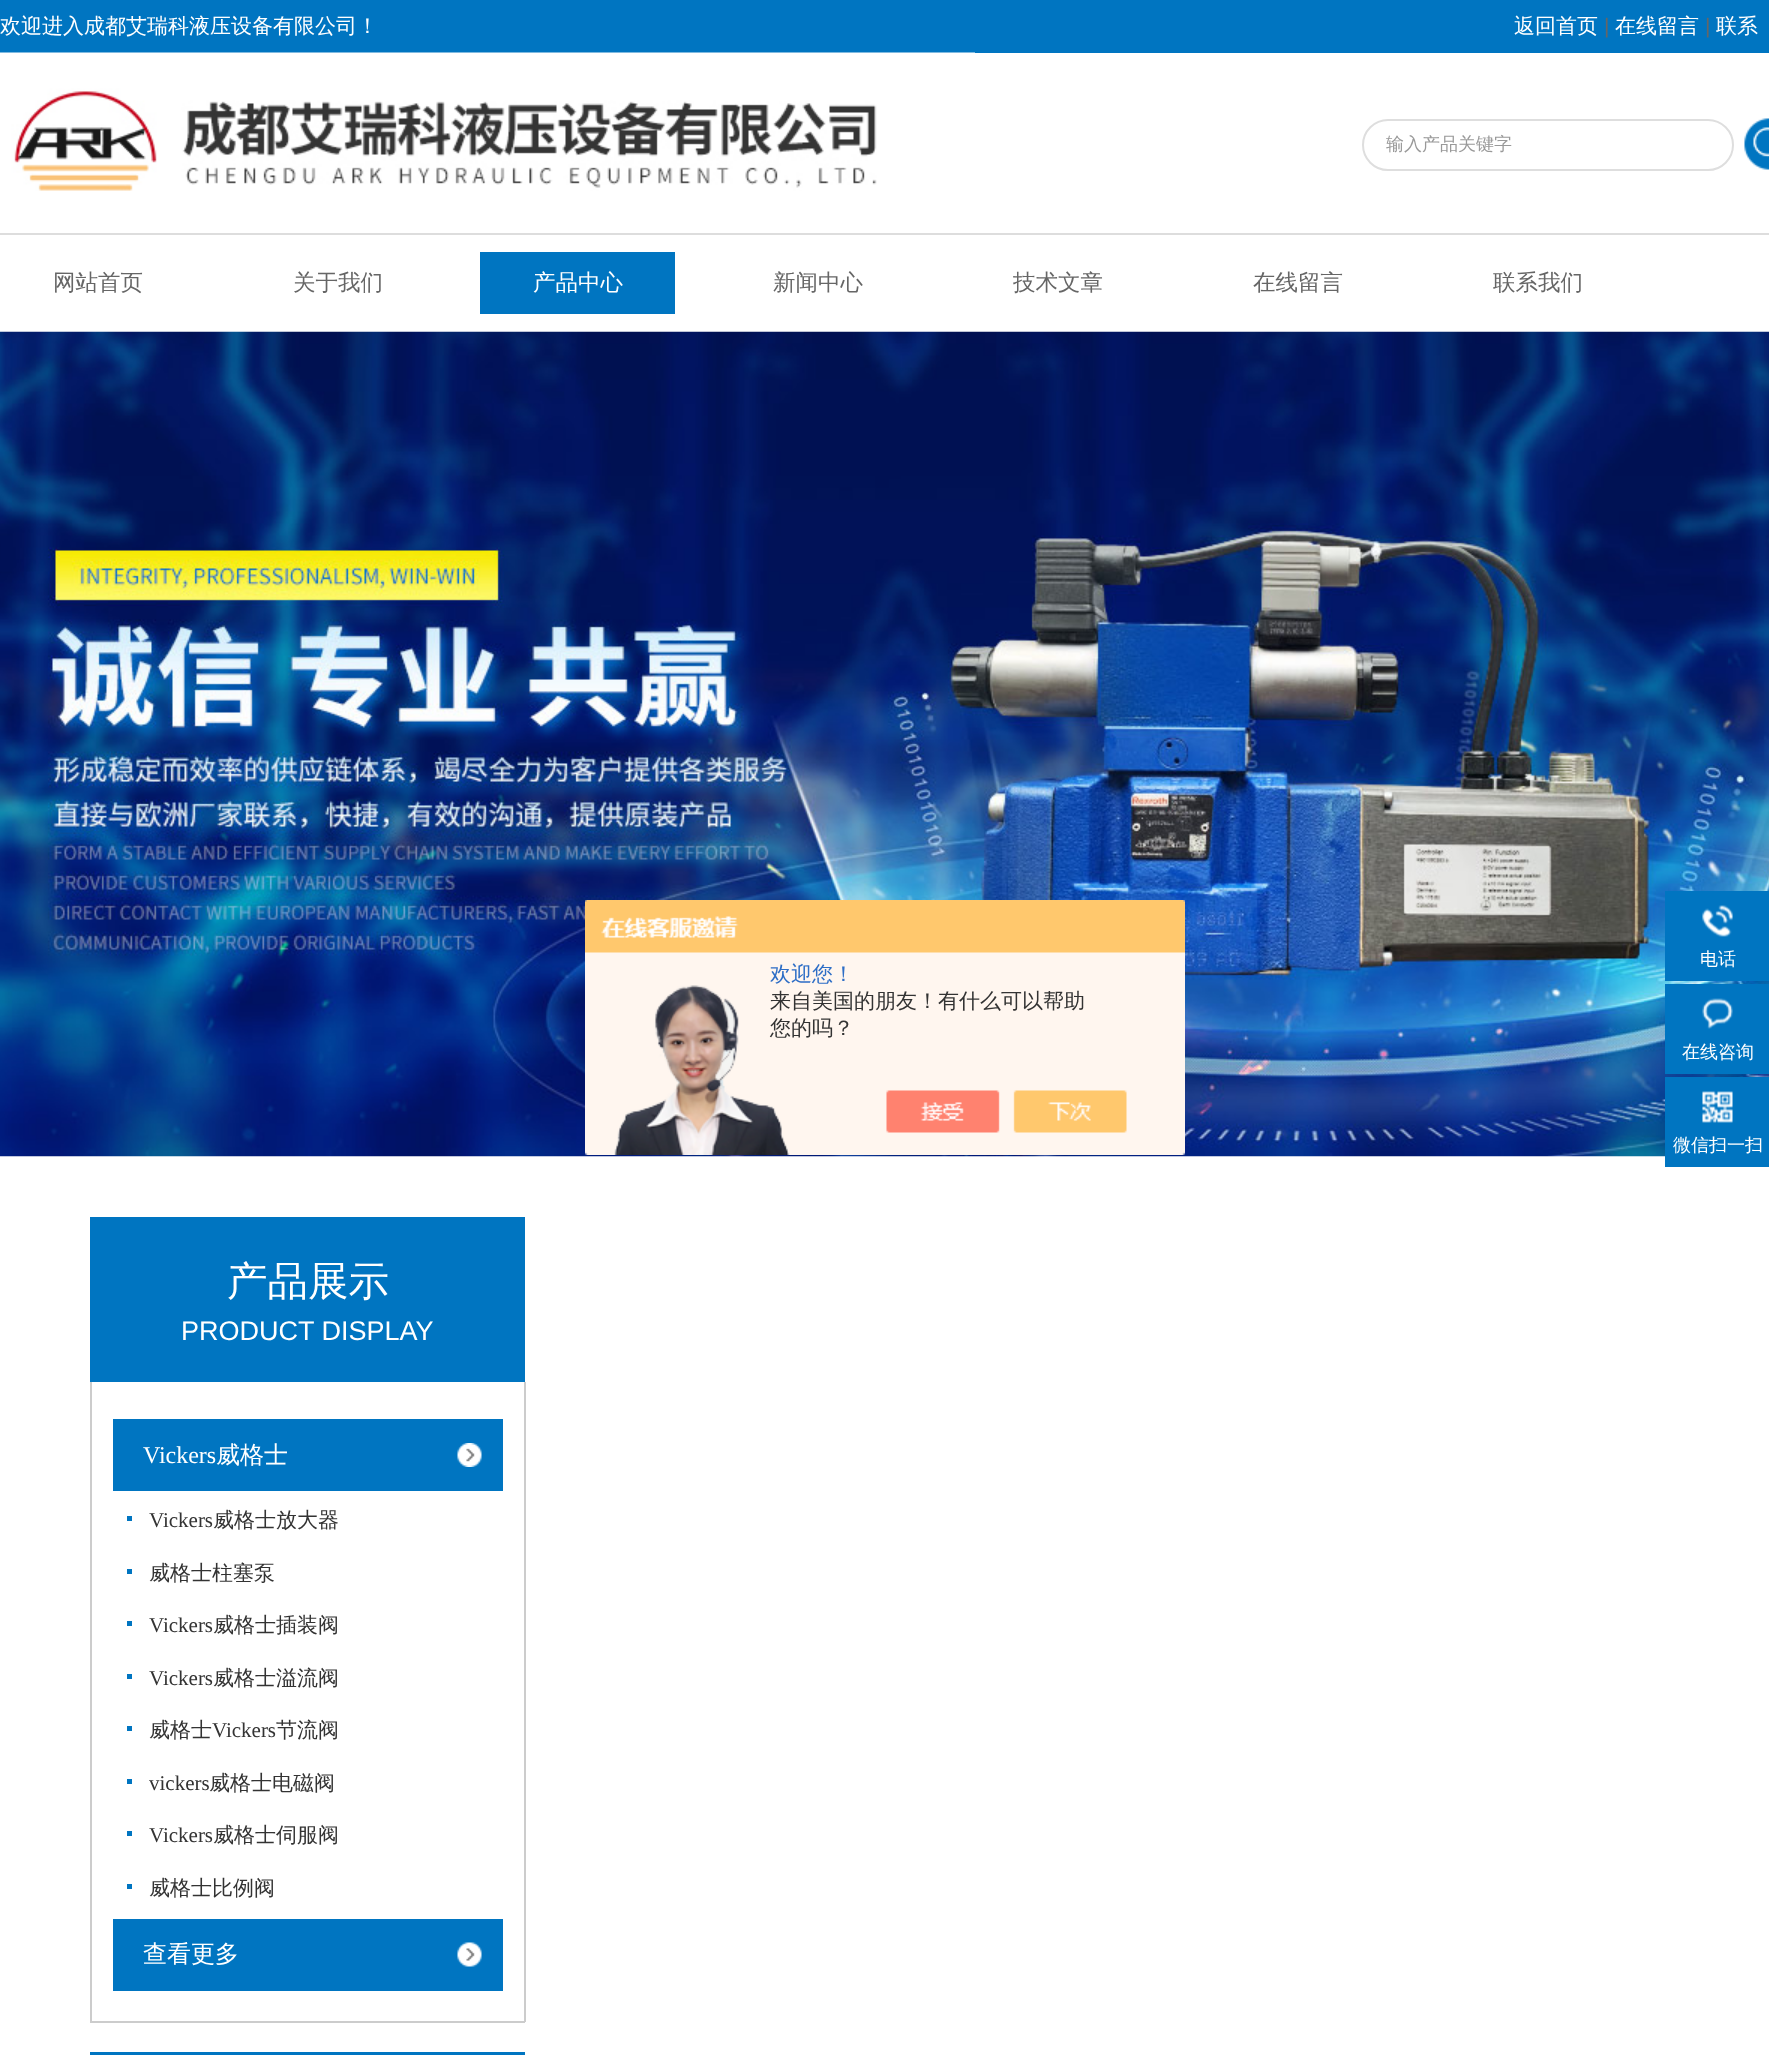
<svg xmlns="http://www.w3.org/2000/svg" width="1769" height="2055">
<style>
.a{font:500 21px WenQuanYi Zen Hei;fill:#fff}
.b{font:21px Liberation Sans;fill:#666}
.c{font:500 18px WenQuanYi Zen Hei;fill:#999}
.d{font:500 22.5px WenQuanYi Zen Hei;fill:#666}
.e{font:500 22.5px WenQuanYi Zen Hei;fill:#fff}
.f{font:500 21px WenQuanYi Zen Hei;fill:#2e6ec6}
.g{font:500 21px WenQuanYi Zen Hei;fill:#333}
.h{font:500 18px WenQuanYi Zen Hei;fill:#fff}
.i{font:500 40.5px WenQuanYi Zen Hei;fill:#fff}
.j{font:27px Liberation Sans;fill:#fff}
.k{font:24px Liberation Serif;fill:#fff}
.l{font:500 24px WenQuanYi Zen Hei;fill:#fff}
.m{font:21px Liberation Serif;fill:#333}
</style>
<rect width="100%" height="100%" fill="#fff"/>
<path fill="#0075c1" d="M0 0h1769v53H0z"/>
<image href="1.png" x="0" y="52" width="975" height="139"/>
<rect fill="none" stroke="#dedede" stroke-width="2" x="1363" y="120" width="370" height="50" rx="25"/>
<image href="2.png" x="1744" y="118" width="25" height="52"/>
<path fill="#ddd" d="M0 233h1769v2H0z"/>
<path fill="#0075c1" d="M480 252h195v62H480z"/>
<image href="3.png" x="0" y="331" width="1769" height="826"/>
<image href="4.png" x="585" y="900" width="600" height="255"/>
<path fill="#0075c1" d="M1665 891h104v90H1665z"/>
<image href="5.png" x="1702" y="905" width="31" height="32"/>
<path fill="#0075c1" d="M1665 984h104v90H1665z"/>
<image href="6.png" x="1702" y="998" width="31" height="31"/>
<path fill="#0075c1" d="M1665 1077h104v90H1665z"/>
<image href="7.png" x="1702" y="1091" width="31" height="32"/>
<path fill="#0075c1" d="M90 1217h435v165H90z"/>
<path fill="#ccc" d="M524 1382h2v640H524z"/>
<path fill="#ccc" d="M90 2021h435v2H90z"/>
<path fill="#ccc" d="M90 1382h2v640H90z"/>
<path fill="#0075c1" d="M113 1419h390v72H113z"/>
<image href="8.png" x="457" y="1443" width="25" height="24"/>
<path fill="#0075c1" d="M127 1516h5v5H127z"/>
<path fill="#0075c1" d="M127 1569h5v5H127z"/>
<path fill="#0075c1" d="M127 1621h5v5H127z"/>
<path fill="#0075c1" d="M127 1674h5v5H127z"/>
<path fill="#0075c1" d="M127 1726h5v5H127z"/>
<path fill="#0075c1" d="M127 1779h5v5H127z"/>
<path fill="#0075c1" d="M127 1831h5v5H127z"/>
<path fill="#0075c1" d="M127 1884h5v5H127z"/>
<path fill="#0075c1" d="M113 1919h390v72H113z"/>
<image href="9.png" x="457" y="1942" width="25" height="25"/>
<path fill="#0075c1" d="M90 2052h435v3H90z"/>
<text class="a" x="0" y="33">欢迎进入成都艾瑞科液压设备有限公司！</text>
<text class="a" x="1514" y="33">返回首页</text>
<text class="b" x="1604" y="33">|</text>
<text class="a" x="1615" y="33">在线留言</text>
<text class="b" x="1705" y="33">|</text>
<text class="a" x="1716" y="33">联系</text>
<text class="c" x="1386" y="150">输入产品关键字</text>
<text class="d" x="53" y="290">网站首页</text>
<text class="d" x="293" y="290">关于我们</text>
<text class="e" x="533" y="290">产品中心</text>
<text class="d" x="773" y="290">新闻中心</text>
<text class="d" x="1013" y="290">技术文章</text>
<text class="d" x="1253" y="290">在线留言</text>
<text class="d" x="1493" y="290">联系我们</text>
<text class="f" x="770" y="981">欢迎您！</text>
<text class="g" x="770" y="1008">来自美国的朋友！有什么可以帮助</text>
<text class="g" x="770" y="1035">您的吗？</text>
<text class="h" x="1700" y="965">电话</text>
<text class="h" x="1682" y="1058">在线咨询</text>
<text class="h" x="1673" y="1151">微信扫一扫</text>
<text class="i" x="227" y="1295">产品展示</text>
<text class="j" x="181" y="1340">PRODUCT DISPLAY</text>
<text class="k" x="143" y="1463">Vickers</text>
<text class="l" x="216" y="1463">威格士</text>
<text class="m" x="149" y="1527">Vickers</text>
<text class="g" x="213" y="1527">威格士放大器</text>
<text class="g" x="149" y="1580">威格士柱塞泵</text>
<text class="m" x="149" y="1632">Vickers</text>
<text class="g" x="213" y="1632">威格士插装阀</text>
<text class="m" x="149" y="1685">Vickers</text>
<text class="g" x="213" y="1685">威格士溢流阀</text>
<text class="g" x="149" y="1737">威格士</text>
<text class="m" x="212" y="1737">Vickers</text>
<text class="g" x="276" y="1737">节流阀</text>
<text class="m" x="149" y="1790">vickers</text>
<text class="g" x="209" y="1790">威格士电磁阀</text>
<text class="m" x="149" y="1842">Vickers</text>
<text class="g" x="213" y="1842">威格士伺服阀</text>
<text class="g" x="149" y="1895">威格士比例阀</text>
<text class="l" x="143" y="1962">查看更多</text>
</svg>
